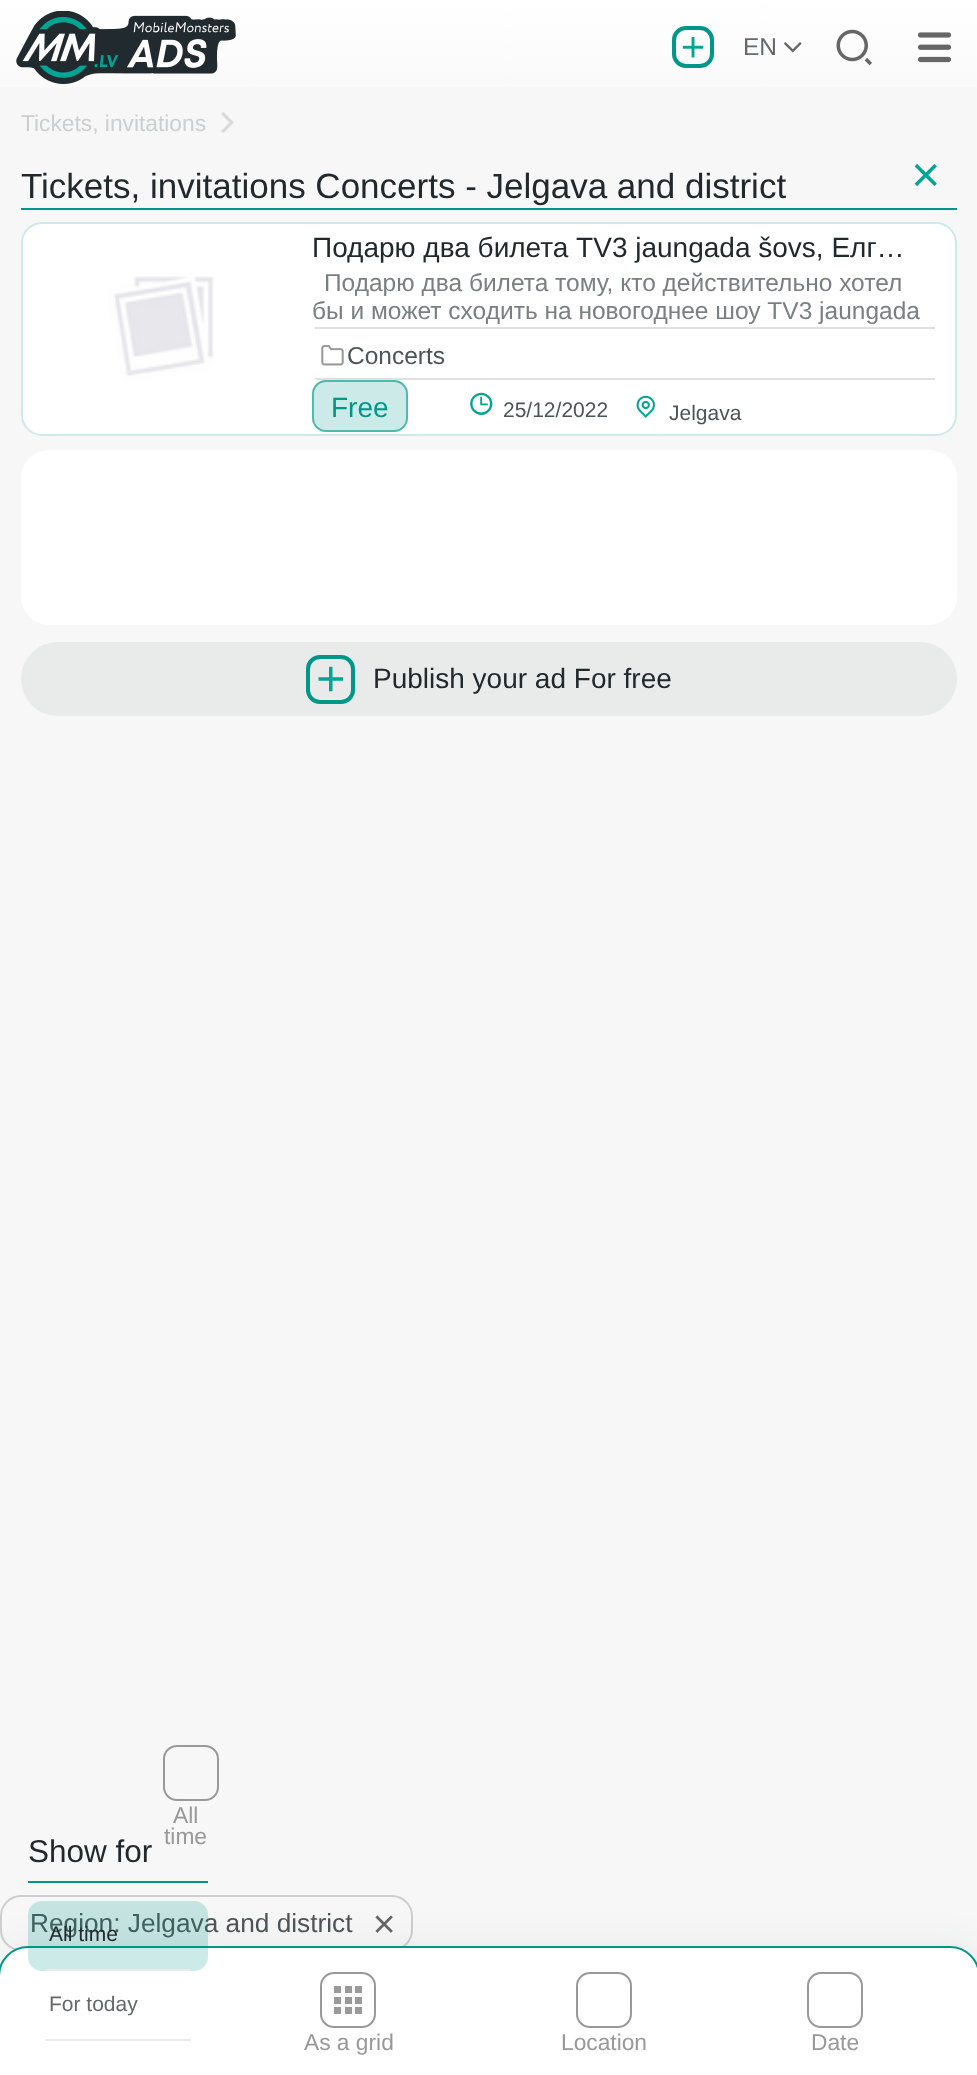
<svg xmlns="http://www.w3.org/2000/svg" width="977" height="2075">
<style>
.a{font:24.5px Liberation Sans;fill:#63686b}
.b{font:22.75px Liberation Sans;fill:#cccecf}
.c{font:35px Liberation Sans;fill:#21292d}
.d{font:28px Liberation Sans;fill:#21292d}
.e{font:24.5px Liberation Sans;fill:#7a7f81}
.f{font:24.5px Liberation Sans;fill:#4d5457}
.g{font:28px Liberation Sans;fill:#009788}
.h{font:21px Liberation Sans;fill:#4d5457}
.i{font:22.75px Liberation Sans;fill:#999}
.j{font:31.5px Liberation Sans;fill:#21292d}
.k{font:21px Liberation Sans;fill:#63686b}
.l{font:26.25px Liberation Sans;fill:#4d5457}
.m{font:21px Liberation Sans;fill:#21292d}
</style>
<defs>
<linearGradient id="g1" gradientUnits="userSpaceOnUse" x1="489" y1="0" x2="489" y2="95"><stop offset="0" stop-color="#fff"/><stop offset="1" stop-color="#f9f9f9"/></linearGradient>
</defs>
<rect width="100%" height="100%" fill="#f7f7f7"/>
<path fill="url(#g1)" d="M0 0h977v87H0z"/>
<image href="1.png" x="16" y="11" width="220" height="73"/>
<image href="2.png" x="682" y="37" width="22" height="21"/>
<rect fill="none" stroke="#009788" stroke-width="4" x="674" y="28" width="38" height="38" rx="12"/>
<image href="3.png" x="784" y="42" width="18" height="11"/>
<image href="4.png" x="836" y="29" width="36" height="37"/>
<image href="5.png" x="917" y="32" width="35" height="31"/>
<image href="6.png" x="221" y="112" width="13" height="21"/>
<path fill="#009788" d="M21 208h936v2H21z"/>
<image href="7.png" x="914" y="164" width="23" height="22"/>
<rect fill="#fff" x="21" y="222" width="936" height="214" rx="21"/>
<rect fill="none" stroke="#00978833" stroke-width="2" x="22" y="223" width="934" height="212" rx="20"/>
<rect fill="#fff" x="23" y="224" width="280" height="210" rx="21"/>
<image href="8.png" x="23" y="239" width="191" height="195"/>
<path fill="#e0e0e0" d="M315 327h620v2H315z"/>
<path fill="#e0e0e0" d="M315 378h620v2H315z"/>
<image href="9.png" x="321" y="345" width="23" height="21"/>
<rect fill="#cceae7" x="312" y="380" width="96" height="52" rx="14"/>
<rect fill="none" stroke="#00978899" stroke-width="2" x="313" y="381" width="94" height="50" rx="13"/>
<image href="10.png" x="470" y="392" width="23" height="23"/>
<image href="11.png" x="636" y="395" width="19" height="23"/>
<rect fill="#fff" x="21" y="450" width="936" height="175" rx="28"/>
<rect fill="#e9eaea" stroke="#e9eaea" stroke-width="2" x="22" y="643" width="934" height="72" rx="36"/>
<image href="12.png" x="318" y="666" width="25" height="26"/>
<rect fill="none" stroke="#009788" stroke-width="4" x="308" y="657" width="45" height="45" rx="12"/>
<rect fill="none" stroke="#cccecf" stroke-width="2" x="1" y="1896" width="411" height="54" rx="20"/>
<image href="14.png" x="375" y="1915" width="18" height="18"/>
<rect fill="#21292d1a" filter="blur(21px)" x="4" y="1951" width="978" height="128" rx="28"/>
<path fill="#fff" stroke="#009788" stroke-width="2" d="M28 1947h922c16 0 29 13 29 29v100h-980v-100c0-16 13-29 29-29z"/>
<rect fill="none" stroke="#999" stroke-width="2" x="164" y="1746" width="54" height="54" rx="13"/>
<path fill="#009788" d="M28 1881h180v2H28z"/>
<path fill="#e9eaea" d="M46 2039h145v2H46z"/>
<image href="13.png" x="334" y="1986" width="28" height="28"/>
<rect fill="none" stroke="#999" stroke-width="2" x="321" y="1973" width="54" height="54" rx="13"/>
<rect fill="none" stroke="#999" stroke-width="2" x="577" y="1973" width="54" height="54" rx="13"/>
<rect fill="none" stroke="#999" stroke-width="2" x="808" y="1973" width="54" height="54" rx="13"/>
<text class="a" x="743" y="55">EN</text>
<text class="b" x="21" y="131">Tickets, invitations</text>
<text class="c" x="21" y="198">Tickets, invitations Concerts - Jelgava and district</text>
<text class="d" x="312" y="257">Подарю два билета TV3 jaungada šovs, Елг…</text>
<text class="e" x="324" y="291">Подарю два билета тому, кто действительно хотел</text>
<text class="e" x="312" y="319">бы и может сходить на новогоднее шоу TV3 jaungada</text>
<text class="f" x="347" y="364">Concerts</text>
<text class="g" x="331" y="417">Free</text>
<text class="h" x="503" y="417">25/12/2022</text>
<text class="h" x="669" y="420">Jelgava</text>
<text class="d" x="373" y="688">Publish your ad For free</text>
<text class="i" x="173" y="1823">All</text>
<text class="i" x="164" y="1844">time</text>
<text class="j" x="28" y="1862">Show for</text>
<text class="k" x="49" y="2011">For today</text>
<text class="i" x="304" y="2050">As a grid</text>
<text class="i" x="561" y="2050">Location</text>
<text class="i" x="811" y="2050">Date</text>
<text class="l" x="30" y="1932">Region: Jelgava and district</text>
<rect fill="#00978833" x="28" y="1901" width="180" height="70" rx="14"/>
<path fill="#e9eaea" d="M46 1969h145v2H46z"/>
<text class="m" x="49" y="1941">All time</text>
</svg>
